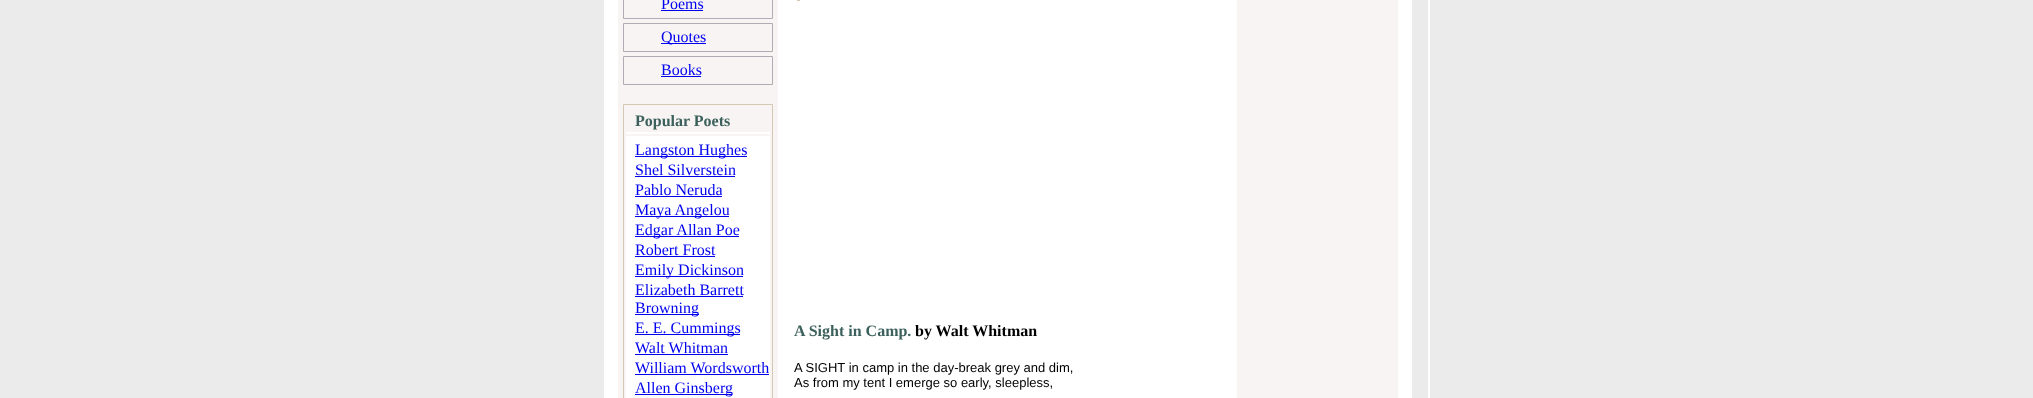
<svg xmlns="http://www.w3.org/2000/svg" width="2033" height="398">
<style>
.a{font:16px Liberation Serif;fill:#00e}
.b{font:bold 16px Liberation Serif;fill:#3c605b}
.c{font:bold 16px Liberation Serif;fill:#000}
.d{font:13px Liberation Sans;fill:#000}
</style>
<rect width="100%" height="100%" fill="#ebebeb"/>
<path fill="#fff" d="M604 0h826v398H604z"/>
<path fill="#f7f4f3" d="M618 0h160v398H618z"/>
<path fill="none" stroke="#b1acb4" d="M623.5 -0.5h149v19H623.5z"/>
<path fill="#00e" d="M661 10h42v1H661z"/>
<path fill="none" stroke="#b1acb4" d="M623.5 23.5h149v28H623.5z"/>
<path fill="#00e" d="M661 43h45v1H661z"/>
<path fill="none" stroke="#b1acb4" d="M623.5 56.5h149v28H623.5z"/>
<path fill="#00e" d="M661 76h40v1H661z"/>
<path fill="none" stroke="#d4c8b5" d="M623.5 104.5h149v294H623.5z"/>
<path fill="#fff" d="M626 132h144v2H626z"/>
<path fill="#fff" d="M626 136h144v262H626z"/>
<path fill="#00e" d="M635 156h112v1H635z"/>
<path fill="#00e" d="M635 176h100v1H635z"/>
<path fill="#00e" d="M635 196h87v1H635z"/>
<path fill="#00e" d="M635 216h94v1H635z"/>
<path fill="#00e" d="M635 236h104v1H635z"/>
<path fill="#00e" d="M635 256h80v1H635z"/>
<path fill="#00e" d="M635 276h108v1H635z"/>
<path fill="#00e" d="M635 296h108v1H635z"/>
<path fill="#00e" d="M635 314h64v1H635z"/>
<path fill="#00e" d="M635 334h105v1H635z"/>
<path fill="#00e" d="M635 354h93v1H635z"/>
<path fill="#00e" d="M635 374h134v1H635z"/>
<path fill="#00e" d="M635 394h97v1H635z"/>
<path fill="#d4c8b5" d="M797 0h3v1H797z"/>
<path fill="#f7f4f3" d="M1237 0h161v398H1237z"/>
<path fill="#ebebeb" d="M1412 0h16v398H1412z"/>
<text class="a" x="661" y="9">Poems</text>
<text class="a" x="661" y="42">Quotes</text>
<text class="a" x="661" y="75">Books</text>
<text class="b" x="635" y="126">Popular Poets</text>
<text class="a" x="635" y="155">Langston Hughes</text>
<text class="a" x="635" y="175">Shel Silverstein</text>
<text class="a" x="635" y="195">Pablo Neruda</text>
<text class="a" x="635" y="215">Maya Angelou</text>
<text class="a" x="635" y="235">Edgar Allan Poe</text>
<text class="a" x="635" y="255">Robert Frost</text>
<text class="a" x="635" y="275">Emily Dickinson</text>
<text class="a" x="635" y="295">Elizabeth Barrett</text>
<text class="a" x="635" y="313">Browning</text>
<text class="a" x="635" y="333">E. E. Cummings</text>
<text class="a" x="635" y="353">Walt Whitman</text>
<text class="a" x="635" y="373">William Wordsworth</text>
<text class="a" x="635" y="393">Allen Ginsberg</text>
<text class="b" x="794" y="336">A Sight in Camp.</text>
<text class="c" x="915" y="336">by Walt Whitman</text>
<text class="d" x="794" y="372">A SIGHT in camp in the day-break grey and dim,</text>
<text class="d" x="794" y="387">As from my tent I emerge so early, sleepless,</text>
</svg>
